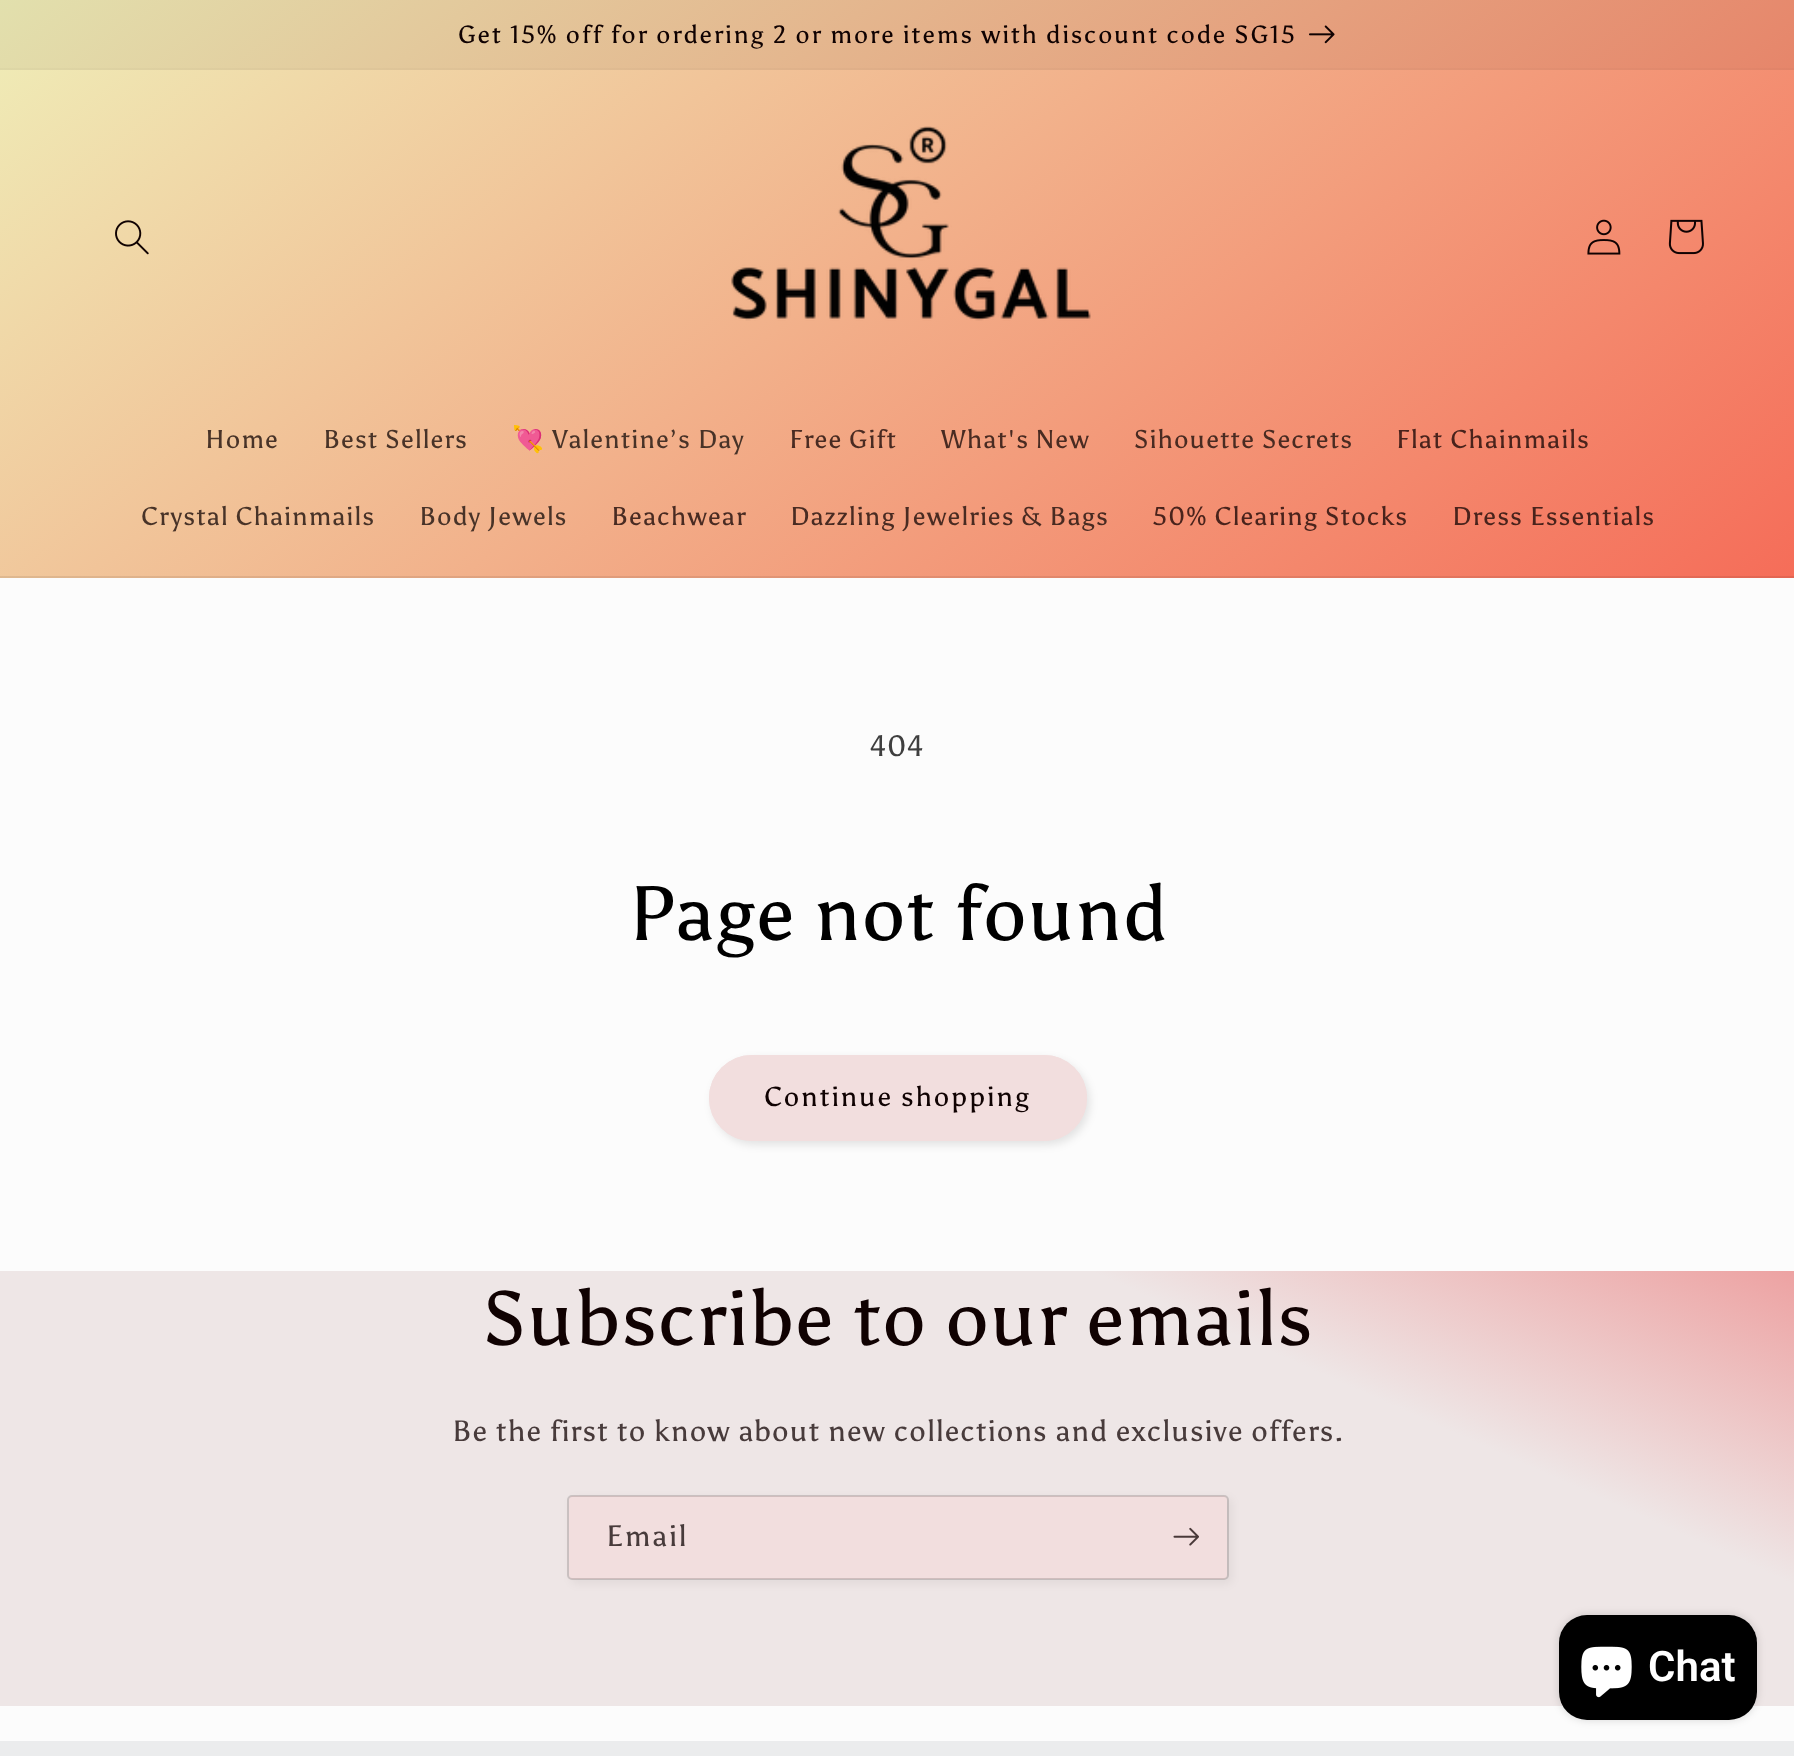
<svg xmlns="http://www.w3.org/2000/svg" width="1794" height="1756">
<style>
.a{font:25.05px Asul;letter-spacing:1.85px;fill:#100202}
.b{font:25.75px Asul;letter-spacing:1.1px;fill:#483328}
.c{font:25.75px Noto Color Emoji;letter-spacing:1.1px;fill:#483328}
.d{font:25.75px Asul;letter-spacing:1.1px;fill:#492b22}
.e{font:25.75px Asul;letter-spacing:1.1px;fill:#49231c}
.f{font:29.4px Asul;letter-spacing:1.1px;fill:#3f3f3f}
.g{font:77px Asul;letter-spacing:1.2px;fill:#000}
.h{font:27.5px Asul;letter-spacing:1.85px;fill:#100202}
.i{font:77px Asul;letter-spacing:1.2px;fill:#100202}
.j{font:29.4px Asul;letter-spacing:1.1px;fill:#483b3b}
.k{font:29.4px Asul;letter-spacing:1.85px;fill:#483b3b}
.l{font:600 42px Roboto;fill:#fff}
</style>
<defs>
<linearGradient id="g1" gradientUnits="userSpaceOnUse" x1="131" y1="-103" x2="1664" y2="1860"><stop offset="0" stop-color="#e2e0ad"/><stop offset="1" stop-color="#eb1e1e"/></linearGradient>
<linearGradient id="g2" gradientUnits="userSpaceOnUse" x1="131" y1="-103" x2="1664" y2="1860"><stop offset="0" stop-color="#dddba9"/><stop offset="1" stop-color="#e61e1e"/></linearGradient>
<linearGradient id="g3" gradientUnits="userSpaceOnUse" x1="131" y1="-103" x2="1664" y2="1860"><stop offset="0" stop-color="#efeeb8"/><stop offset="1" stop-color="#f92020"/></linearGradient>
<linearGradient id="g4" gradientUnits="userSpaceOnUse" x1="423" y1="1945" x2="1373" y2="-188"><stop offset="0.38" stop-color="#eee6e6"/><stop offset="0.62" stop-color="#ec6161"/><stop offset="0.91" stop-color="#eb4646"/></linearGradient>
</defs>
<rect width="100%" height="100%" fill="#fcfcfc"/>
<path fill="url(#g1)" d="M0 0h1794v68H0z"/>
<path fill="url(#g2)" d="M0 68h1794v2H0z"/>
<image href="1.png" x="1309" y="25" width="26" height="19"/>
<path fill="url(#g3)" d="M0 70h1794v506H0z"/>
<path fill="url(#g2)" d="M0 576h1794v2H0z"/>
<image href="2.png" x="115" y="220" width="34" height="35"/>
<image href="3.png" x="731" y="126" width="360" height="195"/>
<image href="4.png" x="1587" y="219" width="34" height="36"/>
<image href="5.png" x="1668" y="219" width="36" height="36"/>
<rect fill="#0000001a" filter="blur(4.5px)" x="712" y="1059" width="378" height="86" rx="43"/>
<rect fill="#f2dede" x="709" y="1055" width="378" height="86" rx="43"/>
<rect fill="none" stroke="#f2dede" stroke-width="2" x="710" y="1056" width="376" height="84" rx="42"/>
<path fill="url(#g4)" d="M0 1271h1794v435H0z"/>
<rect fill="#0000000d" filter="blur(4.5px)" x="571" y="1498" width="661" height="86" rx="5"/>
<rect fill="#f2dede" x="569" y="1496" width="658" height="83" rx="4"/>
<rect fill="none" stroke="#10020226" stroke-width="2" x="568" y="1496" width="660" height="83" rx="4"/>
<image href="6.png" x="1173" y="1527" width="26" height="19"/>
<rect fill="#00000026" filter="blur(4.5px)" x="1559" y="1615" width="198" height="105" rx="28"/>
<rect fill="#000" x="1559" y="1615" width="198" height="105" rx="28"/>
<image href="7.png" x="1581" y="1646" width="51" height="52"/>
<path fill="#ebeced" d="M0 1741h1794v15H0z"/>
<text class="a" x="458" y="43">Get 15% off for ordering 2 or more items with discount code SG15</text>
<text class="b" x="205" y="448">Home</text>
<text class="b" x="323" y="448">Best Sellers</text>
<text class="c" x="512" y="448">💘</text>
<text class="b" x="552" y="448">Valentine’s Day</text>
<text class="d" x="789" y="448">Free Gift</text>
<text class="d" x="941" y="448">What's New</text>
<text class="d" x="1134" y="448">Sihouette Secrets</text>
<text class="e" x="1396" y="448">Flat Chainmails</text>
<text class="b" x="141" y="525">Crystal Chainmails</text>
<text class="b" x="419" y="525">Body Jewels</text>
<text class="d" x="611" y="525">Beachwear</text>
<text class="d" x="790" y="525">Dazzling Jewelries &amp; Bags</text>
<text class="e" x="1153" y="525">50% Clearing Stocks</text>
<text class="e" x="1452" y="525">Dress Essentials</text>
<text class="f" x="870" y="756">404</text>
<text class="g" x="628" y="940">Page not found</text>
<text class="h" x="764" y="1106">Continue shopping</text>
<text class="i" x="483" y="1345">Subscribe to our emails</text>
<text class="j" x="452" y="1441">Be the first to know about new collections and exclusive offers.</text>
<text class="k" x="606" y="1546">Email</text>
<text class="l" x="1648" y="1681">Chat</text>
</svg>
